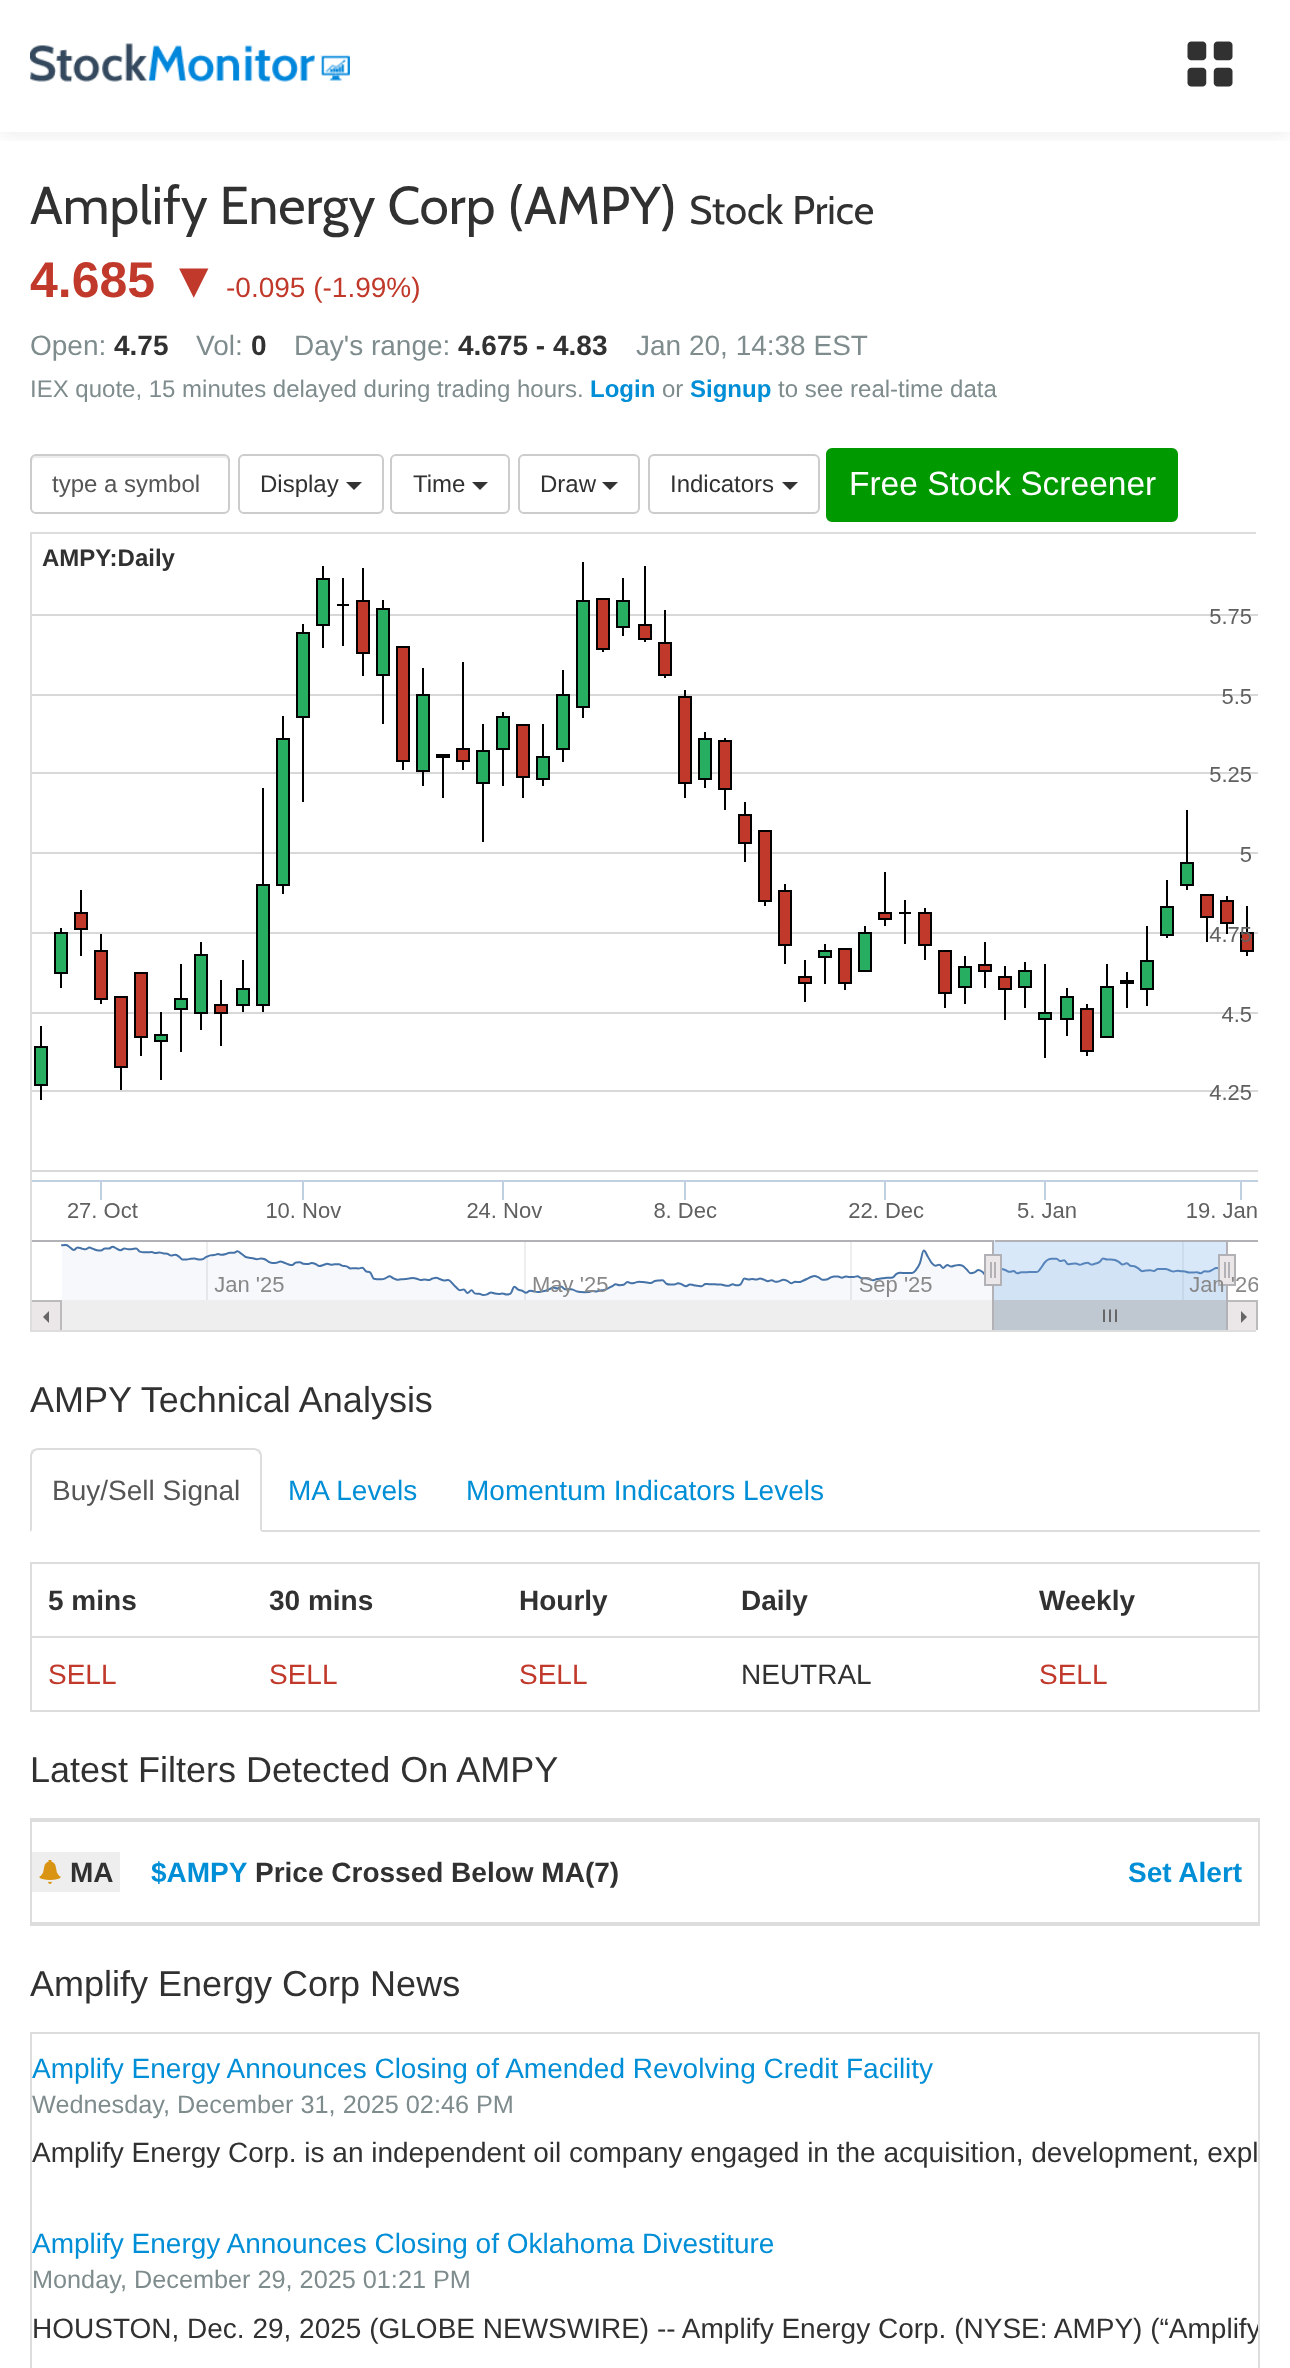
<svg xmlns="http://www.w3.org/2000/svg" width="1290" height="2368">
<style>
.a{font:53.25px Cabin;fill:#313131}
.b{font:40px Cabin;fill:#313131}
.c{font:bold 50px Liberation Sans;fill:#c0392b}
.d{font:28px Liberation Sans;fill:#c0392b}
.e{font:28px Liberation Sans;fill:#7f8c8d}
.f{font:bold 28px Liberation Sans;fill:#313131}
.g{font:24px Liberation Sans;fill:#7f8c8d}
.h{font:bold 24px Liberation Sans;fill:#008ed6}
.i{font:24px Liberation Sans;fill:#555}
.j{font:24px Liberation Sans;fill:#313131}
.k{font:33.5px Liberation Sans;fill:#fff}
.l{font:bold 24px Liberation Sans;fill:#313131}
.m{font:36px Liberation Sans;fill:#313131}
.n{font:28px Liberation Sans;fill:#555}
.o{font:28px Liberation Sans;fill:#008ed6}
.p{font:28px Liberation Sans;fill:#313131}
.q{font:bold 28px Liberation Sans;fill:#008ed6}
.r{font:25.25px Liberation Sans;fill:#7f8c8d}
</style>
<defs>
<clipPath id="clip1"><path d="M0 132h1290v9H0z"/></clipPath>
<clipPath id="clip2"><path d="M32 2034h1226v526H32z"/></clipPath>
</defs>
<rect width="100%" height="100%" fill="#fff"/>
<g clip-path="url(#clip1)">
<path fill="#32323214" filter="blur(8px)" d="M0 4h1290v132H0z"/>
</g>
<image href="1.png" x="30" y="43" width="320" height="39"/>
<image href="2.png" x="1187" y="41" width="46" height="46"/>
<path fill="#ececec" d="M36 458h188c2 0 4 2 4 4v-2c0-2-2-4-4-4h-188c-2 0-4 2-4 4v2c0-2 2-4 4-4z"/>
<rect fill="none" stroke="#ccc" stroke-width="2" x="31" y="455" width="198" height="58" rx="5"/>
<rect fill="none" stroke="#ccc" stroke-width="2" x="239" y="455" width="144" height="58" rx="5"/>
<path fill="#333" d="M346 482h16l-8 8z"/>
<rect fill="none" stroke="#ccc" stroke-width="2" x="391" y="455" width="118" height="58" rx="5"/>
<path fill="#333" d="M472 482h16l-8 8z"/>
<rect fill="none" stroke="#ccc" stroke-width="2" x="519" y="455" width="120" height="58" rx="5"/>
<path fill="#333" d="M602 482h16l-8 8z"/>
<rect fill="none" stroke="#ccc" stroke-width="2" x="649" y="455" width="170" height="58" rx="5"/>
<path fill="#333" d="M782 482h16l-8 8z"/>
<rect fill="#090" stroke="#090" stroke-width="2" x="827" y="449" width="350" height="72" rx="5"/>
<path fill="none" stroke="#ddd" stroke-width="2" d="M31 533h1224v798H31z"/>
<image href="3.png" x="32" y="534" width="1226" height="796"/>
<path fill="#ddd" d="M262 1530h998v2H262z"/>
<path fill="#ddd" d="M38 1448c-2 0-4 1-6 2l2 2c1-1 2-2 4-2h216c2 0 3 1 4 2l2-2c-2-1-4-2-6-2z"/>
<path fill="#ddd" d="M262 1532v-76c0-2-1-4-2-6l-2 2l2 3v75z"/>
<path fill="#ddd" d="M30 1532l2-2v-75l2-3l-2-2c-1 2-2 4-2 6z"/>
<path fill="none" stroke="#ddd" stroke-width="2" d="M31 1563h1228v148H31z"/>
<path fill="#ddd" d="M32 1636h1226v2H32z"/>
<path fill="none" stroke="#ddd" stroke-width="2" d="M31 1819h1228v106H31z"/>
<path fill="#eee" d="M32 1852h88v40H32z"/>
<image href="4.png" x="39" y="1860" width="22" height="24"/>
<path fill="#ddd" d="M32 1820h1226v2H32z"/>
<path fill="#ddd" d="M32 1922h1226v2H32z"/>
<path fill="none" stroke="#ddd" stroke-width="2" d="M31 2033h1228v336H31z"/>
<text class="a" x="30" y="224">Amplify Energy Corp (AMPY)</text>
<text class="b" x="689" y="224">Stock Price</text>
<text class="c" x="30" y="297">4.685 ▼</text>
<text class="d" x="226" y="297">-0.095 (-1.99%)</text>
<text class="e" x="30" y="355">Open:</text>
<text class="f" x="114" y="355">4.75</text>
<text class="e" x="196" y="355">Vol:</text>
<text class="f" x="251" y="355">0</text>
<text class="e" x="294" y="355">Day's range:</text>
<text class="f" x="458" y="355">4.675 - 4.83</text>
<text class="e" x="636" y="355">Jan 20, 14:38 EST</text>
<text class="g" x="30" y="397">IEX quote, 15 minutes delayed during trading hours.</text>
<text class="h" x="590" y="397">Login</text>
<text class="g" x="662" y="397">or</text>
<text class="h" x="690" y="397">Signup</text>
<text class="g" x="778" y="397">to see real-time data</text>
<text class="i" x="52" y="492">type a symbol</text>
<text class="j" x="260" y="492">Display</text>
<text class="j" x="413" y="492">Time</text>
<text class="j" x="540" y="492">Draw</text>
<text class="j" x="670" y="492">Indicators</text>
<text class="k" x="849" y="495">Free Stock Screener</text>
<text class="l" x="42" y="566">AMPY:Daily</text>
<text class="m" x="30" y="1412">AMPY Technical Analysis</text>
<text class="n" x="52" y="1500">Buy/Sell Signal</text>
<text class="o" x="288" y="1500">MA Levels</text>
<text class="o" x="466" y="1500">Momentum Indicators Levels</text>
<text class="f" x="48" y="1610">5 mins</text>
<text class="f" x="269" y="1610">30 mins</text>
<text class="f" x="519" y="1610">Hourly</text>
<text class="f" x="741" y="1610">Daily</text>
<text class="f" x="1039" y="1610">Weekly</text>
<text class="d" x="48" y="1684">SELL</text>
<text class="d" x="269" y="1684">SELL</text>
<text class="d" x="519" y="1684">SELL</text>
<text class="p" x="741" y="1684">NEUTRAL</text>
<text class="d" x="1039" y="1684">SELL</text>
<text class="m" x="30" y="1782">Latest Filters Detected On AMPY</text>
<text class="f" x="70" y="1882">MA</text>
<text class="q" x="151" y="1882">$AMPY</text>
<text class="f" x="255" y="1882">Price Crossed Below MA(7)</text>
<text class="q" x="1128" y="1882">Set Alert</text>
<text class="m" x="30" y="1996">Amplify Energy Corp News</text>
<text class="o" x="32" y="2078">Amplify Energy Announces Closing of Amended Revolving Credit Facility</text>
<text class="r" x="32" y="2113">Wednesday, December 31, 2025 02:46 PM</text>
<text class="p" x="32" y="2162">Amplify Energy Corp. is an independent oil company engaged in the acquisition, development, expl</text>
<text class="o" x="32" y="2253">Amplify Energy Announces Closing of Oklahoma Divestiture</text>
<text class="r" x="32" y="2288">Monday, December 29, 2025 01:21 PM</text>
<g clip-path="url(#clip2)">
<text class="p" x="32" y="2338">HOUSTON, Dec. 29, 2025 (GLOBE NEWSWIRE) -- Amplify Energy Corp. (NYSE: AMPY) (“Amplify</text>
</g>
</svg>
